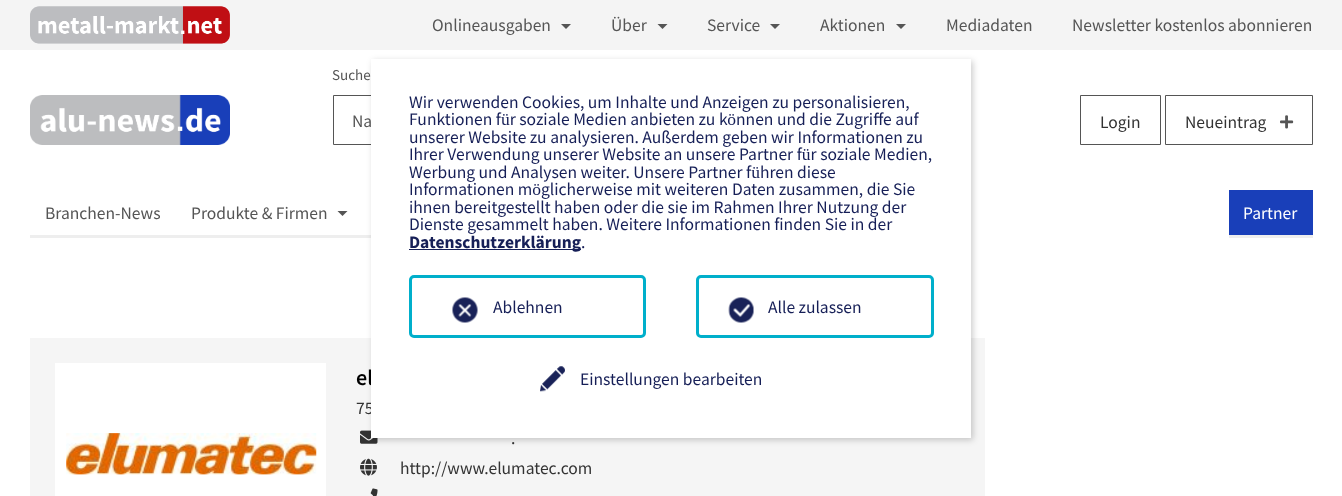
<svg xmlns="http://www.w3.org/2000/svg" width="1342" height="496">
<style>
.a{font:17.5px Source Sans Pro;fill:#555}
.b{font:15px Source Sans Pro;fill:#555}
.c{font:17.5px Source Sans Pro;fill:#333}
.d{font:17.5px Source Sans Pro;fill:#fff}
.e{font:600 22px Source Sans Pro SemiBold;fill:#000}
.f{font:17.5px Source Sans Pro;fill:#161f57}
.g{font:bold 17.5px Source Sans Pro;fill:#161f57}
</style>
<rect width="100%" height="100%" fill="#fff"/>
<path fill="#f4f4f4" d="M0 0h1342v50H0z"/>
<image href="1.png" x="30" y="6" width="200" height="38"/>
<path fill="#555" d="M561 24h10l-5 5z"/>
<path fill="#555" d="M657.5 24h10l-5 5z"/>
<path fill="#555" d="M770 24h10l-5 5z"/>
<path fill="#555" d="M896 24h10l-5 5z"/>
<image href="2.png" x="30" y="95" width="200" height="50"/>
<path fill="none" stroke="#555" d="M333.5 95.5h625v49H333.5z"/>
<path fill="none" stroke="#555" d="M1080.5 95.5h80v49H1080.5z"/>
<path fill="none" stroke="#555" d="M1165.5 95.5h147v49H1165.5z"/>
<image href="3.png" x="1280" y="115" width="14" height="14"/>
<path fill="#eee" d="M30 235h341v3H30z"/>
<path fill="#555" d="M337.5 211h10l-5 5z"/>
<path fill="#193fb9" d="M1229 190h84v45H1229z"/>
<path fill="#eee" d="M1229 235h84v3H1229z"/>
<path fill="#f5f5f5" d="M30 338h955v158H30z"/>
<image href="8.png" x="360" y="430" width="18" height="14"/>
<path fill="#00000033" filter="blur(3px)" d="M373 61h600v379H373z"/>
<path fill="#fff" d="M55 363h271v133H55z"/>
<image href="7.png" x="66" y="433" width="251" height="42"/>
<image href="9.png" x="360" y="458" width="17" height="18"/>
<image href="10.png" x="370" y="488" width="8" height="8"/>
<text class="a" x="432" y="31">Onlineausgaben</text>
<text class="a" x="611" y="31">Über</text>
<text class="a" x="707" y="31">Service</text>
<text class="a" x="820" y="31">Aktionen</text>
<text class="a" x="946" y="31">Mediadaten</text>
<text class="a" x="1072" y="31">Newsletter kostenlos abonnieren</text>
<text class="b" x="332" y="80">Suche</text>
<text class="a" x="352" y="127">Na</text>
<text class="c" x="1100" y="128">Login</text>
<text class="c" x="1185" y="128">Neueintrag</text>
<text class="a" x="45" y="219">Branchen-News</text>
<text class="a" x="191" y="219">Produkte &amp; Firmen</text>
<text class="d" x="1243" y="219">Partner</text>
<text class="e" x="356" y="385">el</text>
<text class="c" x="356" y="414">75</text>
<path fill="#fff" d="M371 59h600v379H371z"/>
<image href="6.png" x="540" y="366" width="25" height="26"/>
<text class="f" x="580" y="385">Einstellungen bearbeiten</text>
<rect fill="none" stroke="#00afcb" stroke-width="3" x="697.5" y="276.5" width="235" height="60" rx="3.5"/>
<image href="5.png" x="728" y="297" width="26" height="26"/>
<text class="f" x="768" y="313">Alle zulassen</text>
<rect fill="none" stroke="#00afcb" stroke-width="3" x="410.5" y="276.5" width="234" height="60" rx="3.5"/>
<image href="4.png" x="452" y="297" width="26" height="26"/>
<text class="f" x="493" y="313">Ablehnen</text>
<text class="f" x="581" y="248">.</text>
<path fill="#161f57" d="M409 249h172v1H409z"/>
<text class="g" x="409" y="248">Datenschutzerklärung</text>
<text class="f" x="409" y="230">Dienste gesammelt haben. Weitere Informationen finden Sie in der</text>
<text class="f" x="409" y="213">ihnen bereitgestellt haben oder die sie im Rahmen Ihrer Nutzung der</text>
<text class="f" x="409" y="195">Informationen möglicherweise mit weiteren Daten zusammen, die Sie</text>
<text class="f" x="409" y="178">Werbung und Analysen weiter. Unsere Partner führen diese</text>
<text class="f" x="409" y="160">Ihrer Verwendung unserer Website an unsere Partner für soziale Medien,</text>
<text class="f" x="409" y="143">unserer Website zu analysieren. Außerdem geben wir Informationen zu</text>
<text class="f" x="409" y="125">Funktionen für soziale Medien anbieten zu können und die Zugriffe auf</text>
<text class="f" x="409" y="108">Wir verwenden Cookies, um Inhalte und Anzeigen zu personalisieren,</text>
<text class="c" x="511" y="444">.</text>
<text class="c" x="400" y="474">http://www.elumatec.com</text>
</svg>
